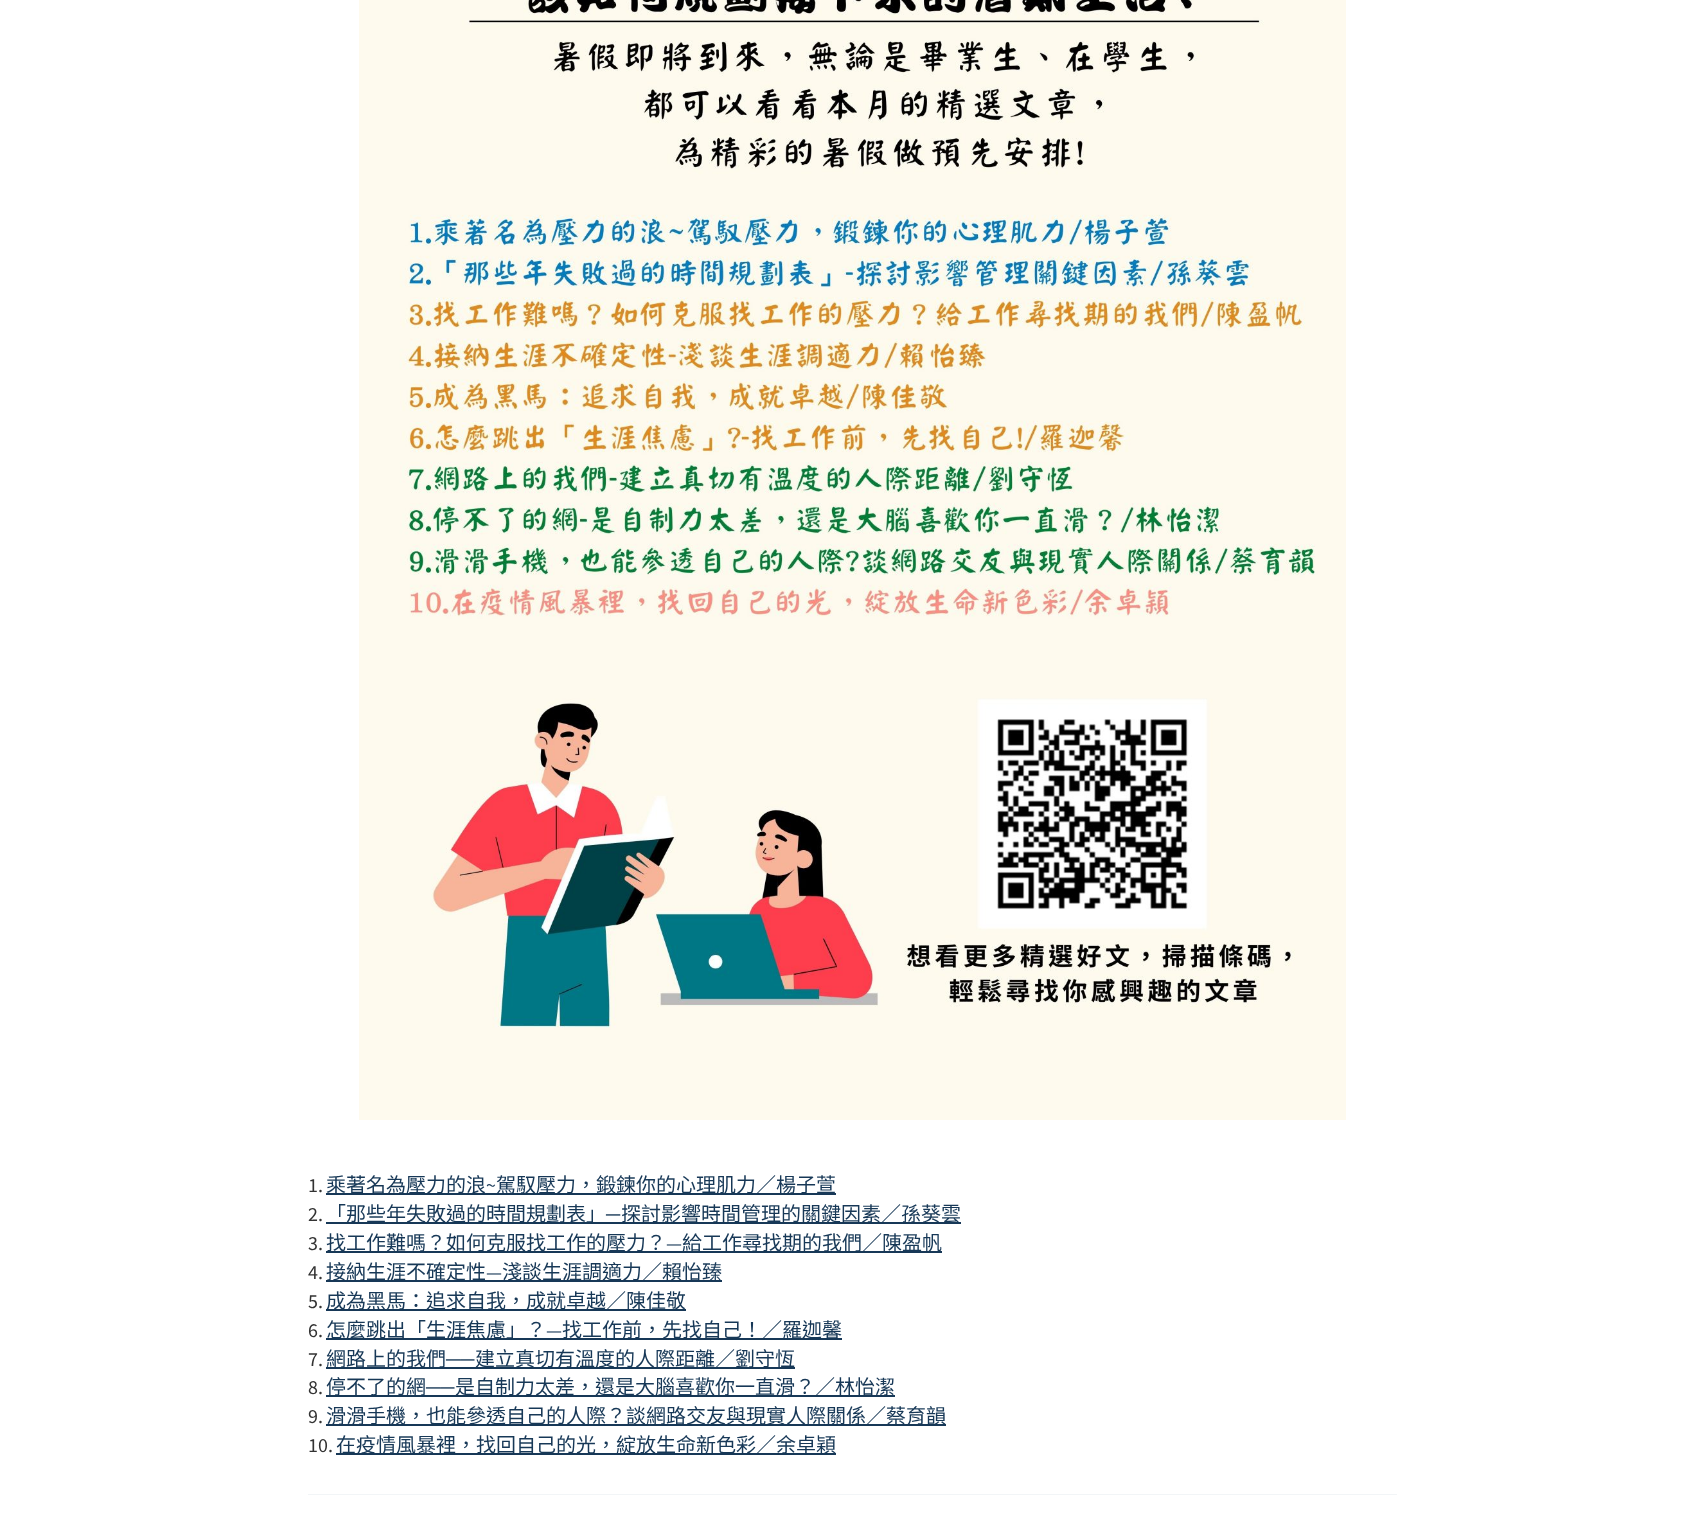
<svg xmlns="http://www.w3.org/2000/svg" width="1704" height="1535">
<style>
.a{font:20px Source Sans Pro;fill:#333}
.b{font:20px Noto Sans CJK TC;fill:#173857}
.c{font:20px Source Sans Pro;fill:#173857}
.d{font:20px Liberation Sans;fill:#173857}
</style>
<rect width="100%" height="100%" fill="#fff"/>
<image href="1.png" x="359" y="0" width="987" height="1120"/>
<path fill="#173857" d="M326 1193h510v2H326z"/>
<path fill="#173857" d="M326 1222h635v2H326z"/>
<path fill="#173857" d="M326 1251h616v2H326z"/>
<path fill="#173857" d="M326 1280h396v2H326z"/>
<path fill="#173857" d="M326 1309h360v2H326z"/>
<path fill="#173857" d="M326 1338h516v2H326z"/>
<path fill="#173857" d="M326 1367h469v2H326z"/>
<path fill="#173857" d="M326 1395h569v2H326z"/>
<path fill="#173857" d="M326 1424h620v2H326z"/>
<path fill="#173857" d="M336 1453h500v2H336z"/>
<path fill="#f2f5f7" d="M308 1494h1089v1H308z"/>
<text class="a" x="308" y="1192">1.</text>
<text class="b" x="326" y="1192">乘著名為壓力的浪</text>
<text class="c" x="486" y="1192">~</text>
<text class="b" x="496" y="1192">駕馭壓力，鍛鍊你的心理肌力／楊子萱</text>
<text class="a" x="308" y="1221">2.</text>
<text class="b" x="326" y="1221">「那些年失敗過的時間規劃表」</text>
<text class="d" x="606" y="1221">─</text>
<text class="b" x="621" y="1221">探討影響時間管理的關鍵因素／孫葵雲</text>
<text class="a" x="308" y="1250">3.</text>
<text class="b" x="326" y="1250">找工作難嗎？如何克服找工作的壓力？</text>
<text class="c" x="666" y="1250">—</text>
<text class="b" x="682" y="1250">給工作尋找期的我們／陳盈帆</text>
<text class="a" x="308" y="1279">4.</text>
<text class="b" x="326" y="1279">接納生涯不確定性</text>
<text class="c" x="486" y="1279">—</text>
<text class="b" x="502" y="1279">淺談生涯調適力／賴怡臻</text>
<text class="a" x="308" y="1308">5.</text>
<text class="b" x="326" y="1308">成為黑馬：追求自我，成就卓越／陳佳敬</text>
<text class="a" x="308" y="1337">6.</text>
<text class="b" x="326" y="1337">怎麼跳出「生涯焦慮」？</text>
<text class="c" x="546" y="1337">—</text>
<text class="b" x="562" y="1337">找工作前，先找自己！／羅迦馨</text>
<text class="a" x="308" y="1366">7.</text>
<text class="b" x="326" y="1366">網路上的我們</text>
<text class="d" x="446" y="1366">──</text>
<text class="b" x="475" y="1366">建立真切有溫度的人際距離／劉守恆</text>
<text class="a" x="308" y="1394">8.</text>
<text class="b" x="326" y="1394">停不了的網</text>
<text class="d" x="426" y="1394">──</text>
<text class="b" x="455" y="1394">是自制力太差，還是大腦喜歡你一直滑？／林怡潔</text>
<text class="a" x="308" y="1423">9.</text>
<text class="b" x="326" y="1423">滑滑手機，也能參透自己的人際？談網路交友與現實人際關係／蔡育韻</text>
<text class="a" x="308" y="1452">10.</text>
<text class="b" x="336" y="1452">在疫情風暴裡，找回自己的光，綻放生命新色彩／余卓穎</text>
</svg>
